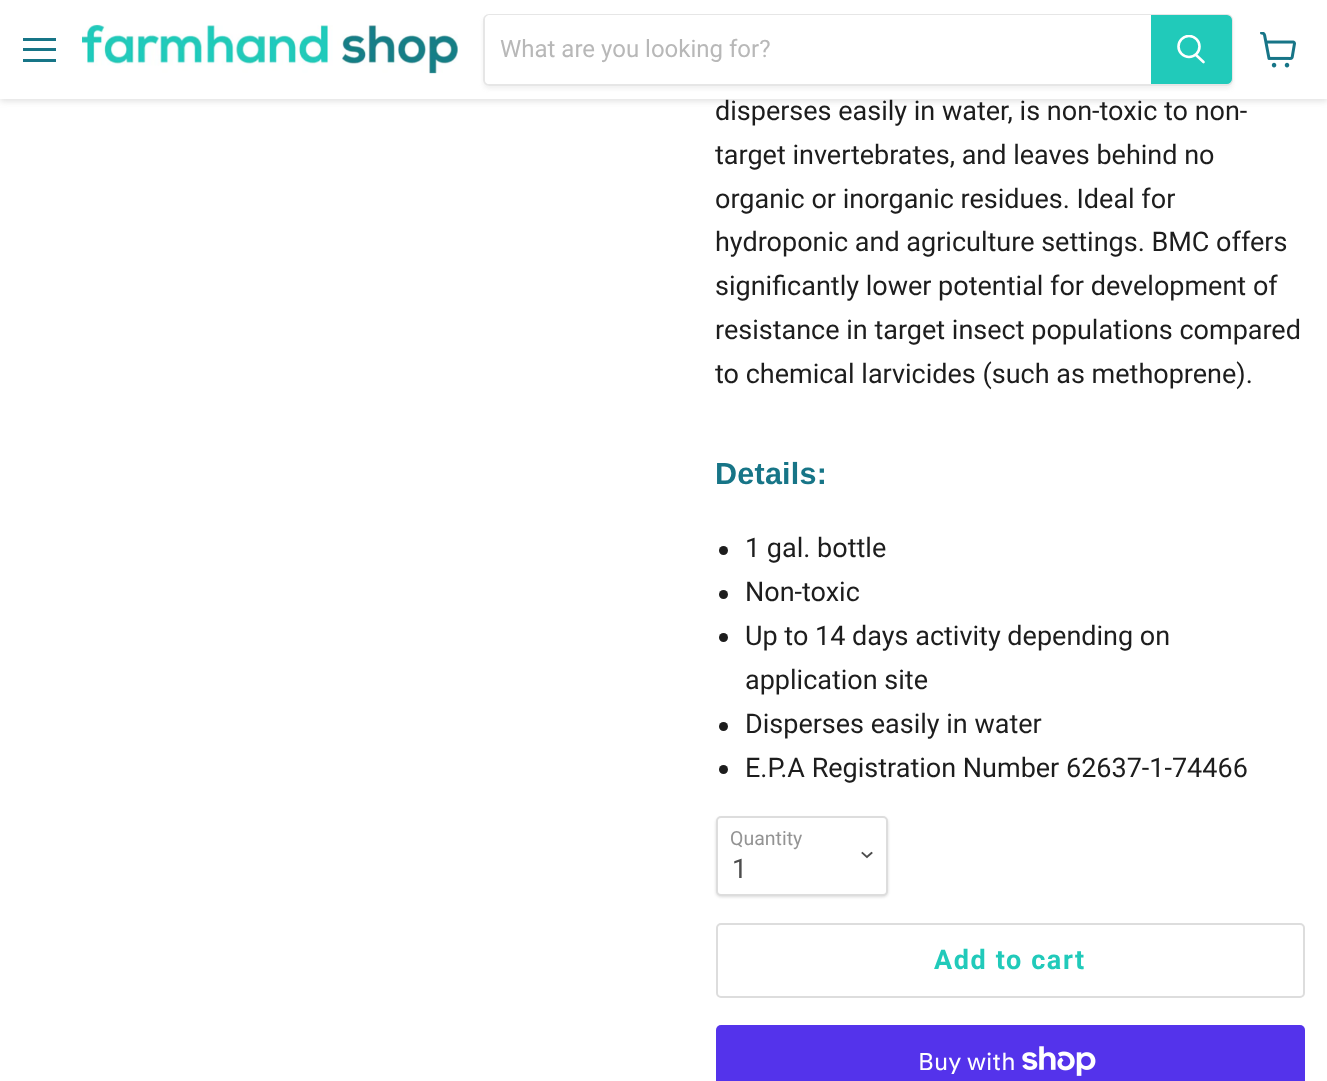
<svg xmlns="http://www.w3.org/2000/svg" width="1327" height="1081">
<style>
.a{font:24px Roboto;fill:#b8b8b8}
.b{font:27px Roboto;fill:#1d1d1d}
.c{font:bold 30.5px Liberation Sans;letter-spacing:0.25px;fill:#177587}
.d{font:19.5px Roboto;fill:#949494}
.e{font:27px Roboto;fill:#4d4d4d}
.f{font:bold 27px Roboto;letter-spacing:1.6px;fill:#21caba}
.g{font:24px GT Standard;fill:#fff}
</style>
<defs>
<clipPath id="clip1"><path d="M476 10h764v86h-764zm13 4h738c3.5 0 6 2.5 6 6v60c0 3.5-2.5 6-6 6h-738c-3.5 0-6-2.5-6-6v-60c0-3.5 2.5-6 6-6z" clip-rule="evenodd"/></clipPath>
<clipPath id="clip2"><path d="M1176 35h30v31H1176z"/></clipPath>
</defs>
<rect width="100%" height="100%" fill="#fff"/>
<path fill="#80808040" filter="blur(3px)" d="M0 2h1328v99H0z"/>
<path fill="#fff" d="M0 0h1327v99H0z"/>
<path fill="#177587" d="M23 38h33v3H23z"/>
<path fill="#177587" d="M23 48h33v3H23z"/>
<path fill="#177587" d="M23 59h33v3H23z"/>
<image href="1.png" x="82" y="24" width="376" height="50"/>
<g clip-path="url(#clip1)">
<rect fill="#8080801c" filter="blur(2px)" x="483" y="17" width="750" height="72" rx="6"/>
</g>
<rect fill="none" stroke="#80808033" stroke-width="2" x="484" y="15" width="748" height="70" rx="5"/>
<path fill="#fff" d="M490 15h661v69h-661c-3 0-5-2-5-5v-59c0-3 2-5 5-5z"/>
<path fill="#21caba" stroke="#21caba" stroke-width="2" d="M1152 16h75c2 0 4 2 4 4v59c0 2-2 4-4 4h-75z"/>
<path fill="none" stroke="#fff" stroke-width="2.6" stroke-linecap="round" d="M1203.5 62l-7.5-7"/>
<g clip-path="url(#clip2)">
<circle fill="none" stroke="#fff" stroke-width="2.6" cx="1189" cy="46.5" r="10.5"/>
</g>
<image href="2.png" x="1260" y="32" width="36" height="36"/>
<circle fill="#1d1d1d" cx="723.5" cy="550.5" r="4.5"/>
<circle fill="#1d1d1d" cx="723.5" cy="594.5" r="4.5"/>
<circle fill="#1d1d1d" cx="723.5" cy="637.5" r="4.5"/>
<circle fill="#1d1d1d" cx="723.5" cy="726.5" r="4.5"/>
<circle fill="#1d1d1d" cx="723.5" cy="769.5" r="4.5"/>
<rect fill="#00000026" filter="blur(1.5px)" x="716" y="818" width="172" height="79" rx="5"/>
<rect fill="#fff" stroke="#ddd" stroke-width="2" x="717" y="817" width="170" height="78" rx="4"/>
<path fill="none" stroke="#4d4d4d" stroke-width="1.9" stroke-linecap="square" d="M867 857l4.5-4m-4.5 4l-4.5-4"/>
<rect fill="none" stroke="#ddd" stroke-width="2" x="717" y="924" width="587" height="73" rx="4"/>
<rect fill="#5433eb" x="716" y="1025" width="589" height="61" rx="5"/>
<image href="3.png" x="1022" y="1046" width="74" height="30"/>
<text class="a" x="500" y="57">What are you looking for?</text>
<text class="b" x="715" y="120">disperses easily in water, is non-toxic to non-</text>
<text class="b" x="715" y="164">target invertebrates, and leaves behind no</text>
<text class="b" x="715" y="208">organic or inorganic residues. Ideal for</text>
<text class="b" x="715" y="251">hydroponic and agriculture settings. BMC offers</text>
<text class="b" x="715" y="295">significantly lower potential for development of</text>
<text class="b" x="715" y="339">resistance in target insect populations compared</text>
<text class="b" x="715" y="383">to chemical larvicides (such as methoprene).</text>
<text class="c" x="715" y="484">Details:</text>
<text class="b" x="745" y="557">1 gal. bottle</text>
<text class="b" x="745" y="601">Non-toxic</text>
<text class="b" x="745" y="645">Up to 14 days activity depending on</text>
<text class="b" x="745" y="689">application site</text>
<text class="b" x="745" y="733">Disperses easily in water</text>
<text class="b" x="745" y="777">E.P.A Registration Number 62637-1-74466</text>
<text class="d" x="730" y="845">Quantity</text>
<text class="e" x="732" y="878">1</text>
<text class="f" x="934" y="969">Add to cart</text>
<text class="g" x="918" y="1070">Buy with</text>
</svg>
